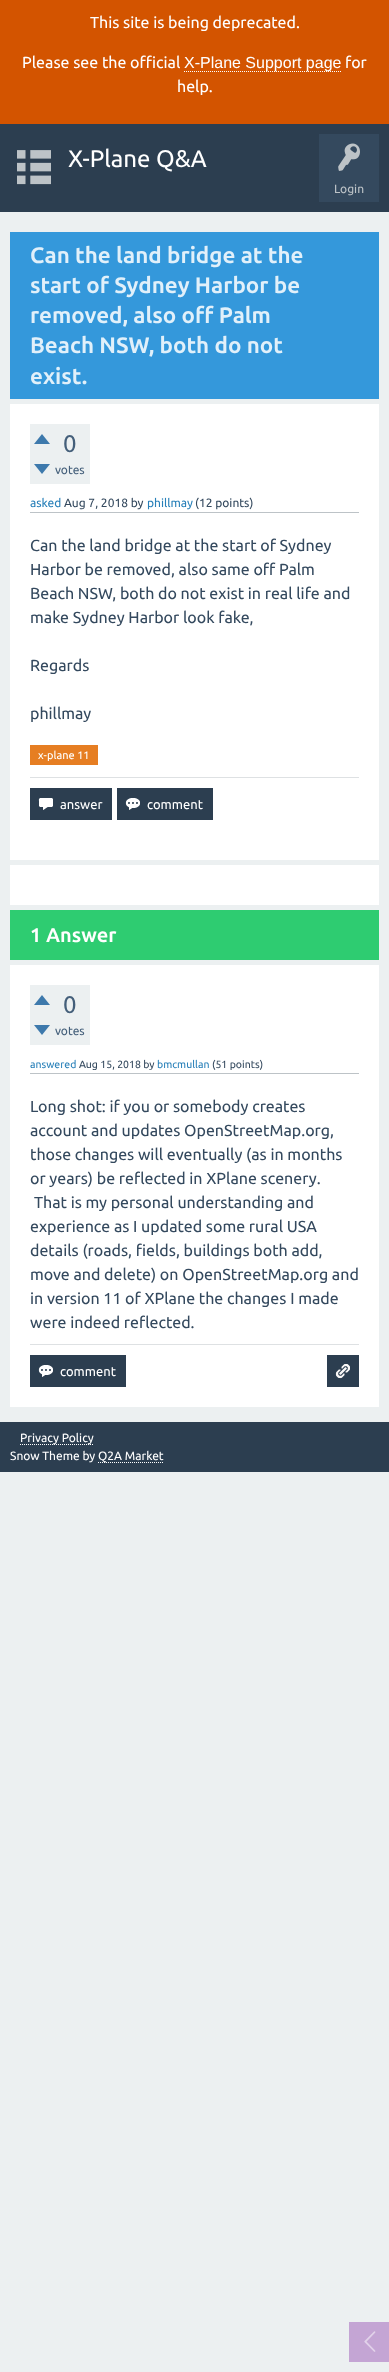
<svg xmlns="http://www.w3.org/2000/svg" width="389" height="2372">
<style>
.a{font:16px Ubuntu;fill:#fff}
.b{font:16px Liberation Sans;fill:#fff}
.c{font:24px Ubuntu;fill:#fff}
.d{font:12px Ubuntu;fill:#bdc3c7}
.e{font:bold 22.4px Ubuntu;fill:#e1f0fa}
.f{font:24px Ubuntu;fill:#445f7a}
.g{font:12px Ubuntu;fill:#445f7a}
.h{font:12px Ubuntu;fill:#2980b9}
.i{font:12px Ubuntu;fill:#34495e}
.j{font:16px Ubuntu;fill:#34495e}
.k{font:11px Ubuntu;fill:#fff}
.l{font:13px Ubuntu;fill:#fff}
.m{font:bold 20px Ubuntu;fill:#fff}
.n{font:10.5px Ubuntu;fill:#2980b9}
.o{font:10.5px Ubuntu;fill:#34495e}
.p{font:12px Ubuntu;fill:#fff}
</style>
<rect width="100%" height="100%" fill="#ecf0f1"/>
<path fill="#d35400" d="M0 0h389v124H0z"/>
<path fill="none" stroke="#fff" stroke-dasharray="1 1" d="M184 71.5h158"/>
<path fill="#2c3e50" d="M0 124h389v88H0z"/>
<image href="1.png" x="17" y="150" width="34" height="35"/>
<path fill="#34495e" d="M319 134h60v68H319z"/>
<image href="2.png" x="338" y="143" width="22" height="28"/>
<path fill="#3498db" d="M10 232h369v167H10z"/>
<path fill="#fff" d="M10 404h369v456H10z"/>
<path fill="#ecf0f1" d="M30 424h60v60H30z"/>
<image href="3.png" x="34" y="434" width="16" height="10"/>
<image href="4.png" x="34" y="464" width="16" height="10"/>
<path fill="#bdc3c7" d="M30 512h329v1H30z"/>
<path fill="#e67e22" d="M30 745h68v20H30z"/>
<path fill="#dee1e3" d="M30 777h329v1H30z"/>
<path fill="#2c3e50" d="M30 788h82v32H30z"/>
<image href="5.png" x="38" y="798" width="15" height="12"/>
<path fill="#2c3e50" d="M117 788h96v32H117z"/>
<image href="6.png" x="125" y="798" width="15" height="12"/>
<path fill="#fff" d="M10 865h369v40H10z"/>
<path fill="#2ecc71" d="M10 910h369v50H10z"/>
<path fill="#fff" d="M10 965h369v442H10z"/>
<path fill="#ecf0f1" d="M30 985h60v60H30z"/>
<image href="3.png" x="34" y="995" width="16" height="10"/>
<image href="4.png" x="34" y="1025" width="16" height="10"/>
<path fill="#bdc3c7" d="M30 1073h329v1H30z"/>
<path fill="#dee1e3" d="M30 1344h329v1H30z"/>
<path fill="#2c3e50" d="M30 1355h96v32H30z"/>
<image href="6.png" x="38" y="1365" width="15" height="12"/>
<path fill="#2c3e50" d="M327 1355h32v32H327z"/>
<image href="7.png" x="335" y="1364" width="15" height="15"/>
<path fill="#c4a5d4" d="M349 2322h40v40H349z"/>
<image href="8.png" x="364" y="2331" width="12" height="21"/>
<path fill="#2c3e50" d="M0 1422h389v50H0z"/>
<path fill="none" stroke="#fff" stroke-dasharray="1 1" d="M20 1444.5h74"/>
<path fill="none" stroke="#fff" stroke-dasharray="1 1" d="M98 1462.5h66"/>
<text class="a" x="90" y="28">This site is being deprecated.</text>
<text class="a" x="22" y="68">Please see the official</text>
<text class="b" x="184" y="68">X‑Plane Support page</text>
<text class="a" x="345" y="68">for</text>
<text class="a" x="177" y="92">help.</text>
<text class="c" x="68" y="167">X-Plane Q&amp;A</text>
<text class="d" x="334" y="193">Login</text>
<text class="e" x="30" y="263">Can the land bridge at the</text>
<text class="e" x="30" y="293">start of Sydney Harbor be</text>
<text class="e" x="30" y="323">removed, also off Palm</text>
<text class="e" x="30" y="353">Beach NSW, both do not</text>
<text class="e" x="30" y="384">exist.</text>
<text class="f" x="63" y="452">0</text>
<text class="g" x="55" y="474">votes</text>
<text class="h" x="30" y="507">asked</text>
<text class="i" x="64" y="507">Aug 7, 2018 by</text>
<text class="h" x="147" y="507">phillmay</text>
<text class="i" x="195" y="507">(12 points)</text>
<text class="j" x="30" y="551">Can the land bridge at the start of Sydney</text>
<text class="j" x="30" y="575">Harbor be removed, also same off Palm</text>
<text class="j" x="30" y="599">Beach NSW, both do not exist in real life and</text>
<text class="j" x="30" y="623">make Sydney Harbor look fake,</text>
<text class="j" x="30" y="671">Regards</text>
<text class="j" x="30" y="719">phillmay</text>
<text class="k" x="38" y="759">x-plane 11</text>
<text class="l" x="60" y="809">answer</text>
<text class="l" x="147" y="809">comment</text>
<text class="m" x="30" y="942">1 Answer</text>
<text class="f" x="63" y="1013">0</text>
<text class="g" x="55" y="1035">votes</text>
<text class="n" x="30" y="1068">answered</text>
<text class="o" x="79" y="1068">Aug 15, 2018 by</text>
<text class="n" x="157" y="1068">bmcmullan</text>
<text class="o" x="212" y="1068">(51 points)</text>
<text class="j" x="30" y="1112">Long shot: if you or somebody creates</text>
<text class="j" x="30" y="1136">account and updates OpenStreetMap.org,</text>
<text class="j" x="30" y="1160">those changes will eventually (as in months</text>
<text class="j" x="30" y="1184">or years) be reflected in XPlane scenery.</text>
<text class="j" x="34" y="1208">That is my personal understanding and</text>
<text class="j" x="30" y="1232">experience as I updated some rural USA</text>
<text class="j" x="30" y="1256">details (roads, fields, buildings both add,</text>
<text class="j" x="30" y="1280">move and delete) on OpenStreetMap.org and</text>
<text class="j" x="30" y="1304">in version 11 of XPlane the changes I made</text>
<text class="j" x="30" y="1328">were indeed reflected.</text>
<text class="l" x="60" y="1376">comment</text>
<text class="p" x="20" y="1442">Privacy Policy</text>
<text class="p" x="10" y="1460">Snow Theme by</text>
<text class="p" x="98" y="1460">Q2A Market</text>
</svg>
